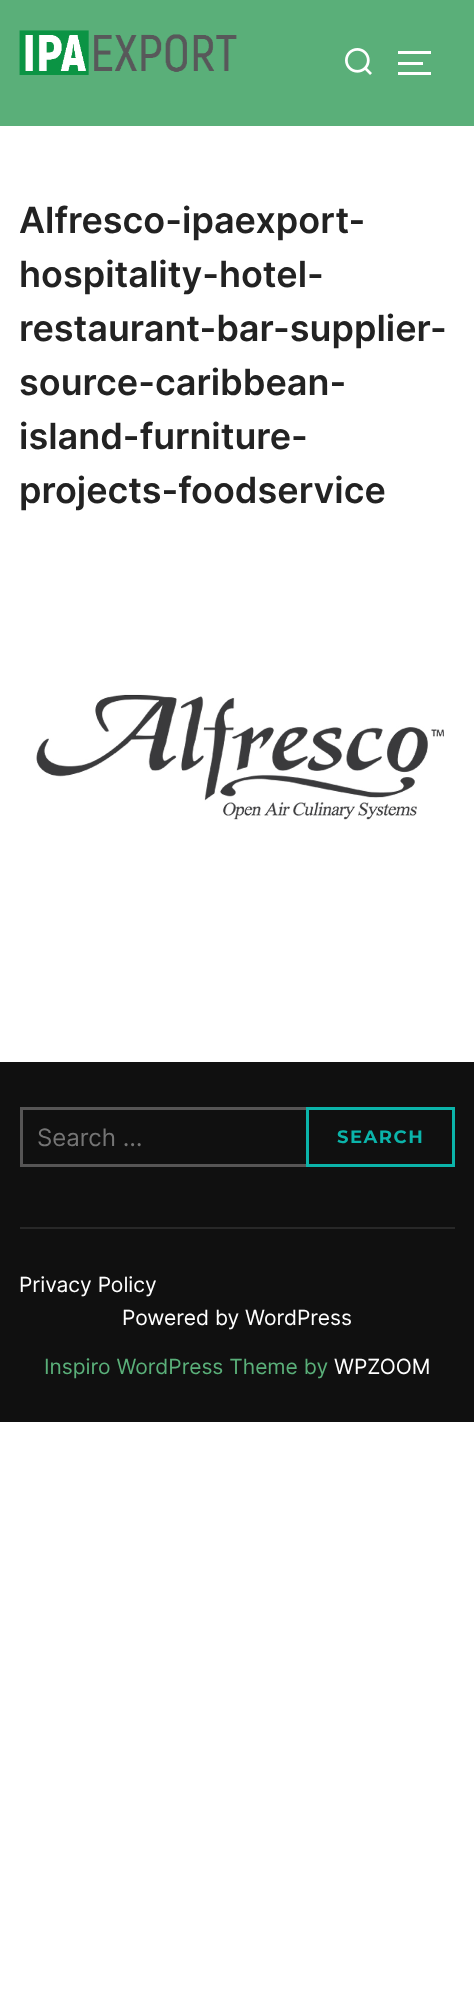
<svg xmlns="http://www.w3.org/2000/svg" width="474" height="1992">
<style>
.a{font:600 36px Inter;fill:#222}
.b{font:24px Inter;fill:#757575}
.c{font:bold 18px Montserrat;letter-spacing:1.5px;fill:#0bb4aa}
.d{font:21px Inter;fill:#fff}
.e{font:21px Inter;fill:#5aaf79}
</style>
<rect width="100%" height="100%" fill="#fff"/>
<path fill="#5aaf79" d="M0 0h474v126H0z"/>
<image href="1.png" x="19" y="30" width="218" height="45"/>
<image href="2.png" x="345" y="48" width="27" height="27"/>
<path fill="#fff" d="M398 51h33v3H398z"/>
<path fill="#fff" d="M398 62h25v3H398z"/>
<path fill="#fff" d="M398 72h33v3H398z"/>
<image href="3.png" x="36" y="694" width="408" height="126"/>
<path fill="#101010" d="M0 1062h474v360H0z"/>
<path fill="none" stroke="#565555" stroke-width="3" d="M21.5 1108.5h432v57H21.5z"/>
<path fill="none" stroke="#0bb4aa" stroke-width="3" d="M307.5 1108.5h146v57H307.5z"/>
<path fill="#282828" d="M20 1227h435v2H20z"/>
<text class="a" x="19" y="233">Alfresco-ipaexport-</text>
<text class="a" x="19" y="287">hospitality-hotel-</text>
<text class="a" x="19" y="341">restaurant-bar-supplier-</text>
<text class="a" x="19" y="395">source-caribbean-</text>
<text class="a" x="19" y="449">island-furniture-</text>
<text class="a" x="19" y="503">projects-foodservice</text>
<text class="b" x="37" y="1146">Search …</text>
<text class="c" x="337" y="1143">SEARCH</text>
<text class="d" x="19" y="1292">Privacy Policy</text>
<text class="d" x="122" y="1325">Powered by WordPress</text>
<text class="e" x="44" y="1374">Inspiro WordPress Theme by</text>
<text class="d" x="334" y="1374">WPZOOM</text>
</svg>
